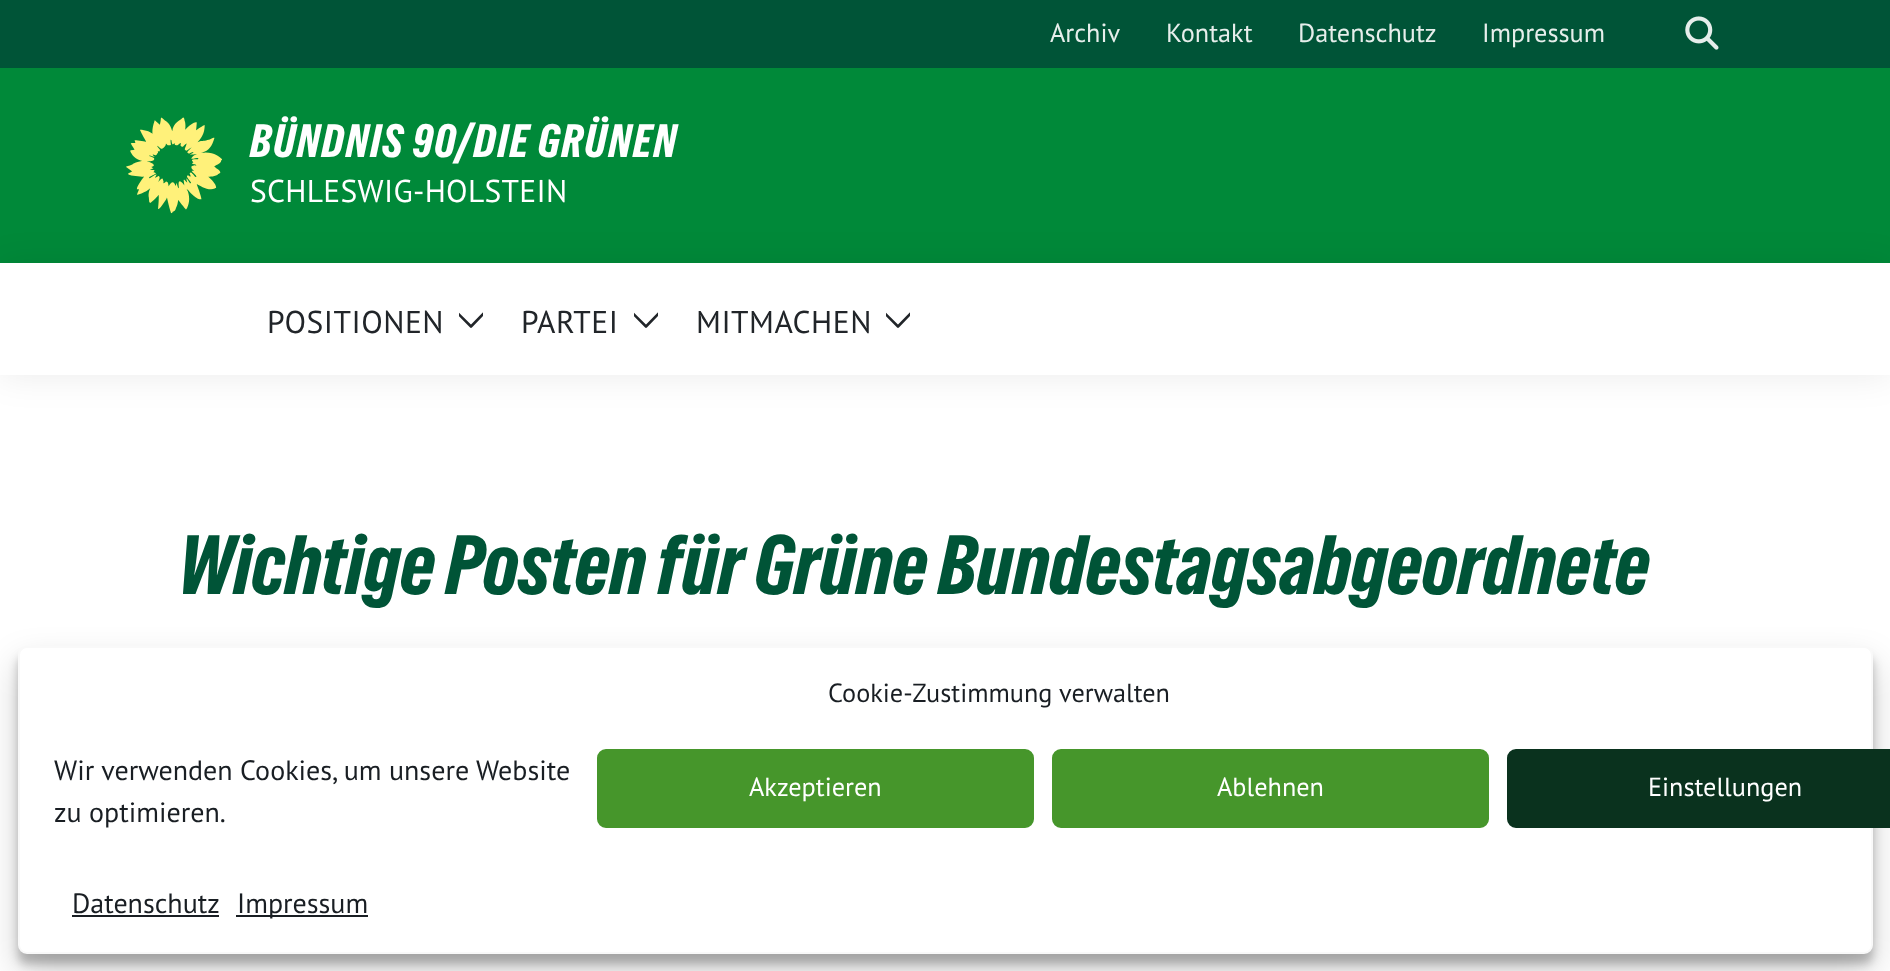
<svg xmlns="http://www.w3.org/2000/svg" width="1890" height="971">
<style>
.a{font:26.25px PT Sans;fill:#e6eeeb}
.b{font:43.75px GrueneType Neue;letter-spacing:1.75px;fill:#fff}
.c{font:31.5px PT Sans;letter-spacing:0.3px;fill:#fff}
.d{font:31.5px PT Sans;letter-spacing:0.5px;fill:#212529}
.e{font:78.75px GrueneType Neue;fill:#005437}
.f{font:26.25px PT Sans;fill:#191e23}
.g{font:28px PT Sans;fill:#191e23}
.h{font:26.25px PT Sans;fill:#fff}
</style>
<defs>
<clipPath id="clip1"><path d="M459 298h24v42H459z"/></clipPath>
<clipPath id="clip2"><path d="M634 298h24v42H634z"/></clipPath>
<clipPath id="clip3"><path d="M886 298h24v42H886z"/></clipPath>
</defs>
<rect width="100%" height="100%" fill="#fff"/>
<path fill="#005437" d="M0 0h1890v68H0z"/>
<image href="1.png" x="1685" y="16" width="34" height="34"/>
<path fill="#008939" d="M0 68h1890v195H0z"/>
<image href="2.png" x="126" y="117" width="96" height="97"/>
<path fill="#00000014" filter="blur(17.5px)" d="M0 264h1890v112H0z"/>
<path fill="#fff" d="M0 263h1890v112H0z"/>
<g clip-path="url(#clip1)">
<path fill="none" stroke="#212529" stroke-width="2.6" stroke-linecap="round" stroke-linejoin="round" d="M455 310.5l16 16l15.5-16"/>
</g>
<g clip-path="url(#clip2)">
<path fill="none" stroke="#212529" stroke-width="2.6" stroke-linecap="round" stroke-linejoin="round" d="M630 310.5l16 16l15.5-16"/>
</g>
<g clip-path="url(#clip3)">
<path fill="none" stroke="#212529" stroke-width="2.6" stroke-linecap="round" stroke-linejoin="round" d="M882 310.5l16 16l15.5-16"/>
</g>
<rect fill="#0000003b" filter="blur(5px)" x="18" y="656" width="1855" height="308" rx="9"/>
<rect fill="#00000030" filter="blur(17.5px)" x="18" y="663" width="1855" height="308" rx="9"/>
<rect fill="#fff" stroke="#f9f9f9" stroke-width="2" x="19" y="647" width="1853" height="306" rx="8"/>
<rect fill="#46962b" stroke="#46962b" stroke-width="2" x="598" y="750" width="435" height="77" rx="8"/>
<rect fill="#46962b" stroke="#46962b" stroke-width="2" x="1053" y="750" width="435" height="77" rx="8"/>
<rect fill="#0a321e" stroke="#0a321e" stroke-width="2" x="1508" y="750" width="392" height="77" rx="8"/>
<path fill="#191e23" d="M72 915h147v2H72z"/>
<path fill="#191e23" d="M236 915h132v2H236z"/>
<text class="a" x="1050" y="42">Archiv</text>
<text class="a" x="1166" y="42">Kontakt</text>
<text class="a" x="1298" y="42">Datenschutz</text>
<text class="a" x="1482" y="42">Impressum</text>
<text class="b" x="250" y="157">BÜNDNIS 90/DIE GRÜNEN</text>
<text class="c" x="250" y="202">SCHLESWIG-HOLSTEIN</text>
<text class="d" x="267" y="333">POSITIONEN</text>
<text class="d" x="521" y="333">PARTEI</text>
<text class="d" x="696" y="333">MITMACHEN</text>
<text class="e" x="179" y="594">Wichtige Posten für Grüne Bundestagsabgeordnete</text>
<text class="f" x="828" y="702">Cookie-Zustimmung verwalten</text>
<text class="g" x="54" y="780">Wir verwenden Cookies, um unsere Website</text>
<text class="g" x="54" y="822">zu optimieren.</text>
<text class="h" x="749" y="796">Akzeptieren</text>
<text class="h" x="1217" y="796">Ablehnen</text>
<text class="h" x="1648" y="796">Einstellungen</text>
<text class="g" x="72" y="913">Datenschutz</text>
<text class="g" x="237" y="913">Impressum</text>
</svg>
